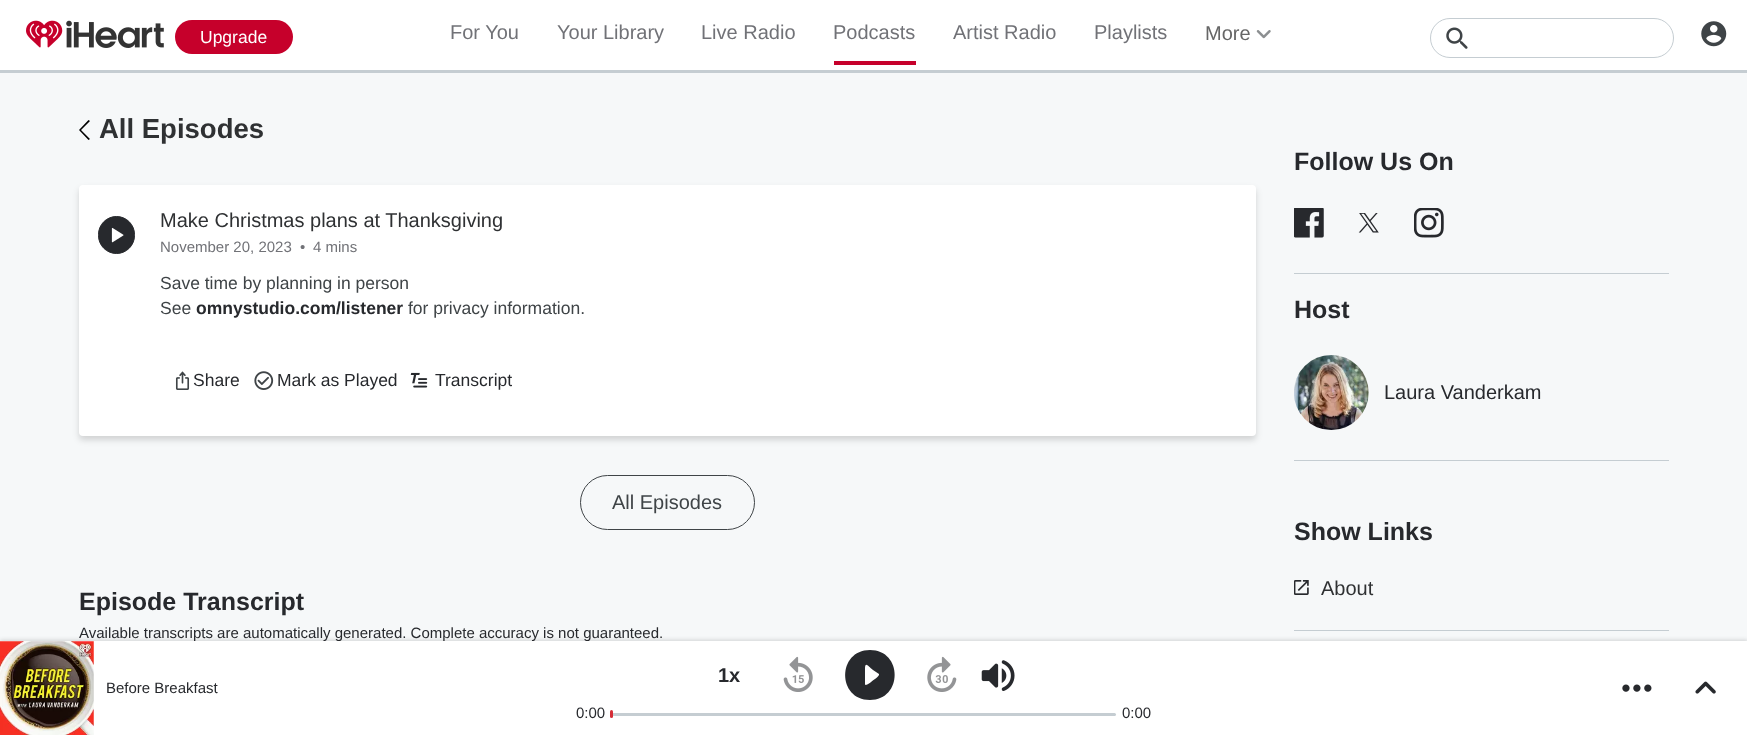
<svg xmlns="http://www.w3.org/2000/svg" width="1747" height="735">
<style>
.a{font:17.5px Liberation Sans;fill:#fff}
.b{font:20px Liberation Sans;fill:#717277}
.c{font:20px Liberation Sans;fill:#666}
.d{font:bold 27.5px Liberation Sans;fill:#2f3133}
.e{font:20px Liberation Sans;fill:#2f3133}
.f{font:15px Liberation Sans;fill:#717277}
.g{font:17.5px Liberation Sans;fill:#3f4447}
.h{font:bold 17.5px Liberation Sans;fill:#27292d}
.i{font:17.5px Liberation Sans;fill:#27292d}
.j{font:20px Liberation Sans;fill:#3f4447}
.k{font:bold 25px Liberation Sans;fill:#27292d}
.l{font:15px Liberation Sans;fill:#27292d}
.m{font:20px Liberation Sans;fill:#27292d}
.n{font:bold 20px Liberation Sans;fill:#27292d}
</style>
<rect width="100%" height="100%" fill="#f6f8f9"/>
<path fill="#fff" d="M0 0h1747v70H0z"/>
<path fill="#c5cdd2" d="M0 70h1747v3H0z"/>
<image href="1.png" x="26" y="20" width="138" height="28"/>
<rect fill="#c6002b" x="175" y="20" width="118" height="34" rx="17"/>
<path fill="#c6002b" d="M834 61h82v4H834z"/>
<image href="2.png" x="1256" y="30" width="15" height="9"/>
<rect fill="none" stroke="#c5cdd2" x="1430.5" y="18.5" width="243" height="39" rx="19.5"/>
<image href="3.png" x="1446" y="27" width="22" height="22"/>
<image href="4.png" x="1701" y="21" width="26" height="26"/>
<path fill="#000" d="M88.5 120l-9.5 10l9.5 10l1.5-1l-9-9l9-9z"/>
<rect fill="#00000026" filter="blur(3px)" x="79" y="189" width="1177" height="251" rx="4"/>
<rect fill="#fff" x="79" y="185" width="1177" height="251" rx="4"/>
<rect fill="#27292d" stroke="#27292d" x="98.5" y="216.5" width="36" height="37" rx="18"/>
<image href="5.png" x="111" y="227" width="13" height="16"/>
<image href="6.png" x="175" y="371" width="15" height="19"/>
<image href="7.png" x="254" y="371" width="20" height="19"/>
<image href="8.png" x="410" y="372" width="18" height="16"/>
<rect fill="none" stroke="#3f4447" x="580.5" y="475.5" width="174" height="54" rx="27"/>
<path fill="#c5cdd2" d="M1294 273h375v1H1294z"/>
<image href="9.png" x="1294" y="208" width="30" height="30"/>
<image href="10.png" x="1358" y="213" width="21" height="20"/>
<image href="11.png" x="1414" y="208" width="30" height="30"/>
<path fill="#c5cdd2" d="M1294 460h375v1H1294z"/>
<image href="12.png" x="1294" y="355" width="75" height="75"/>
<path fill="#c5cdd2" d="M1294 630h375v1H1294z"/>
<image href="13.png" x="1294" y="580" width="15" height="15"/>
<path fill="#00000026" filter="blur(2px)" d="M0 640h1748v94H0z"/>
<text class="a" x="200" y="43">Upgrade</text>
<text class="b" x="450" y="39">For You</text>
<text class="b" x="557" y="39">Your Library</text>
<text class="b" x="701" y="39">Live Radio</text>
<text class="b" x="833" y="39">Podcasts</text>
<text class="b" x="953" y="39">Artist Radio</text>
<text class="b" x="1094" y="39">Playlists</text>
<text class="c" x="1205" y="40">More</text>
<text class="d" x="99" y="138">All Episodes</text>
<text class="e" x="160" y="227">Make Christmas plans at Thanksgiving</text>
<text class="f" x="160" y="252">November 20, 2023</text>
<text class="f" x="300" y="252">•</text>
<text class="f" x="313" y="252">4 mins</text>
<text class="g" x="160" y="289">Save time by planning in person</text>
<text class="g" x="160" y="314">See</text>
<text class="h" x="196" y="314">omnystudio.com/listener</text>
<text class="g" x="408" y="314">for privacy information.</text>
<text class="i" x="193" y="386">Share</text>
<text class="i" x="277" y="386">Mark as Played</text>
<text class="i" x="435" y="386">Transcript</text>
<text class="j" x="612" y="509">All Episodes</text>
<text class="k" x="79" y="610">Episode Transcript</text>
<text class="l" x="79" y="638">Available transcripts are automatically generated. Complete accuracy is not guaranteed.</text>
<text class="k" x="1294" y="170">Follow Us On</text>
<text class="k" x="1294" y="318">Host</text>
<text class="m" x="1384" y="399">Laura Vanderkam</text>
<text class="k" x="1294" y="540">Show Links</text>
<text class="e" x="1321" y="595">About</text>
<path fill="#fff" d="M0 641h1747v94H0z"/>
<image href="14.png" x="0" y="641" width="94" height="94"/>
<text class="l" x="106" y="693">Before Breakfast</text>
<text class="n" x="718" y="682">1x</text>
<image href="15.png" x="783" y="656" width="30" height="36"/>
<path fill="#27292d" d="M870 650c-33 0-33 50 0 50c33 0 33-50 0-50zm-5 34v-15c0-8 3-3 8 1l6 4c1 2-7 7-8 8c0 0-6 5-6 2z"/>
<image href="16.png" x="927" y="656" width="30" height="36"/>
<image href="17.png" x="981" y="660" width="34" height="31"/>
<text class="l" x="576" y="718">0:00</text>
<rect fill="#c5cdd2" x="611" y="713" width="505" height="3" rx="1.5"/>
<rect fill="#d52d37" x="610" y="710" width="3" height="8" rx="1.5"/>
<text class="l" x="1122" y="718">0:00</text>
<image href="18.png" x="1622" y="684" width="30" height="8"/>
<image href="19.png" x="1695" y="681" width="21" height="13"/>
</svg>
